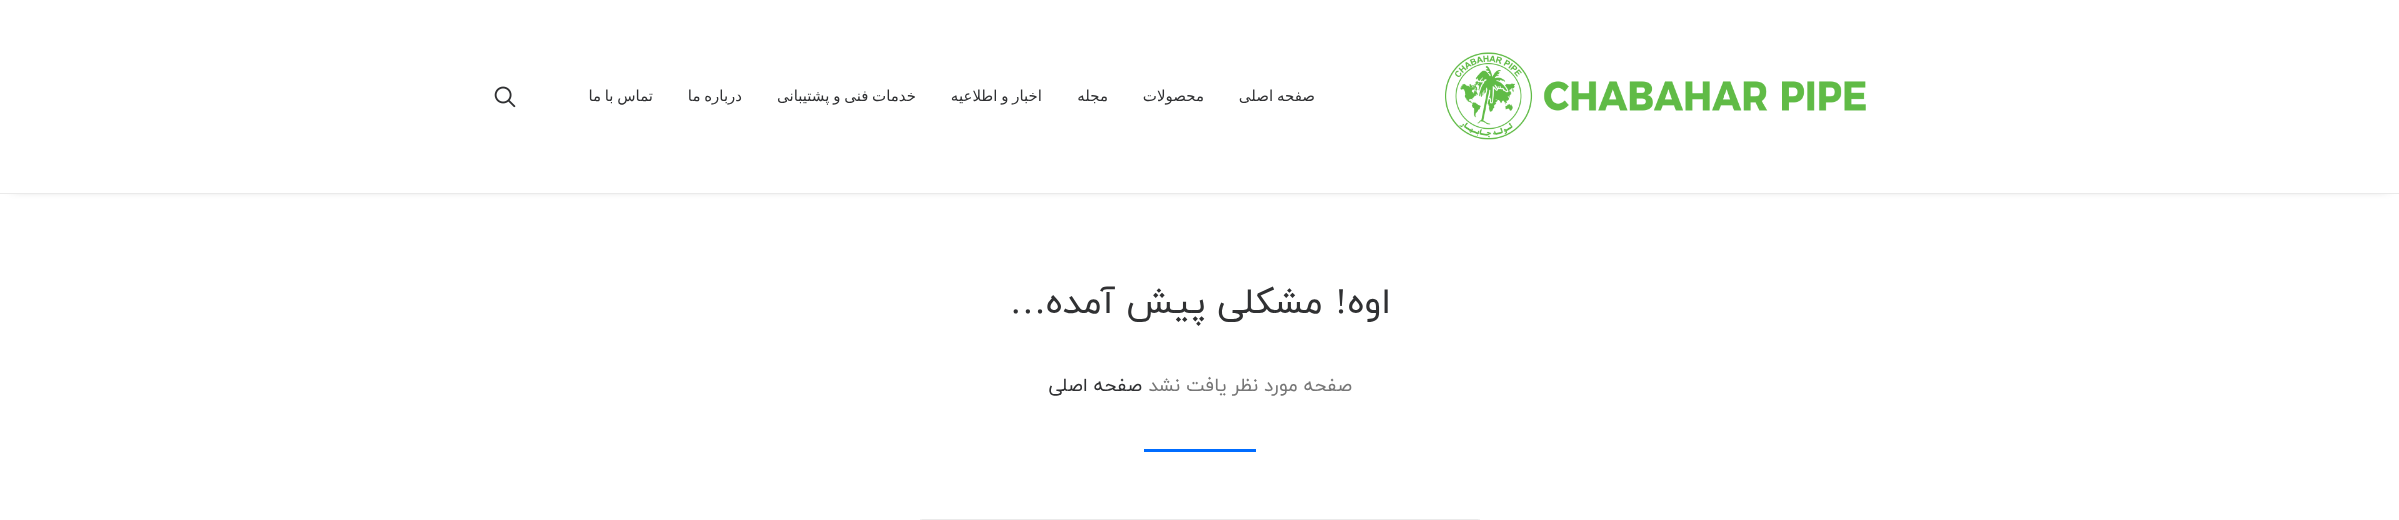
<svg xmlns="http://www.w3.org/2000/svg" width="2399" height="520">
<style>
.a{font:15px DejaVu Sans;direction:rtl;fill:#303133}
.b{font:36.25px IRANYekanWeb;direction:rtl;fill:#303133}
.c{font:36.25px Liberation Serif;direction:rtl;fill:#303133}
.d{font:18.75px IRANYekanWeb;direction:rtl;fill:#777}
.e{font:18.75px IRANYekanWeb;direction:rtl;fill:#303133}
</style>
<rect width="100%" height="100%" fill="#fff"/>
<path fill="#00000099" filter="blur(6px)" d="M13 18h2375v168H13z"/>
<path fill="#fff" d="M0 5h2399v188H0z"/>
<path fill="#eaeaea" d="M0 193h2399v1H0z"/>
<image href="1.png" x="1445" y="52" width="421" height="88"/>
<image href="2.png" x="494" y="86" width="22" height="22"/>
<path fill="#006cff" d="M1144 449h112v3H1144z"/>
<rect fill="none" stroke="#eaeaea" x="919.5" y="519.5" width="561" height="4" rx="2"/>
<text class="a" x="1315" y="101" word-spacing="-1">صفحه اصلی</text>
<text class="a" x="1204" y="101">محصولات</text>
<text class="a" x="1108" y="101">مجله</text>
<text class="a" x="1042" y="101" word-spacing="-1">اخبار و اطلاعیه</text>
<text class="a" x="916" y="101" word-spacing="-1">خدمات فنی و پشتیبانی</text>
<text class="a" x="742" y="101" word-spacing="-1">درباره ما</text>
<text class="a" x="653" y="101" word-spacing="-1">تماس با ما</text>
<text class="b" x="1391" y="313">اوه</text>
<text class="c" x="1347" y="313">!</text>
<text class="b" x="1323" y="313">مشکلی پیش آمده</text>
<text class="c" x="1046" y="313">…</text>
<text class="d" x="1352" y="391">صفحه مورد نظر یافت نشد</text>
<text class="e" x="1142" y="391">صفحه اصلی</text>
</svg>
